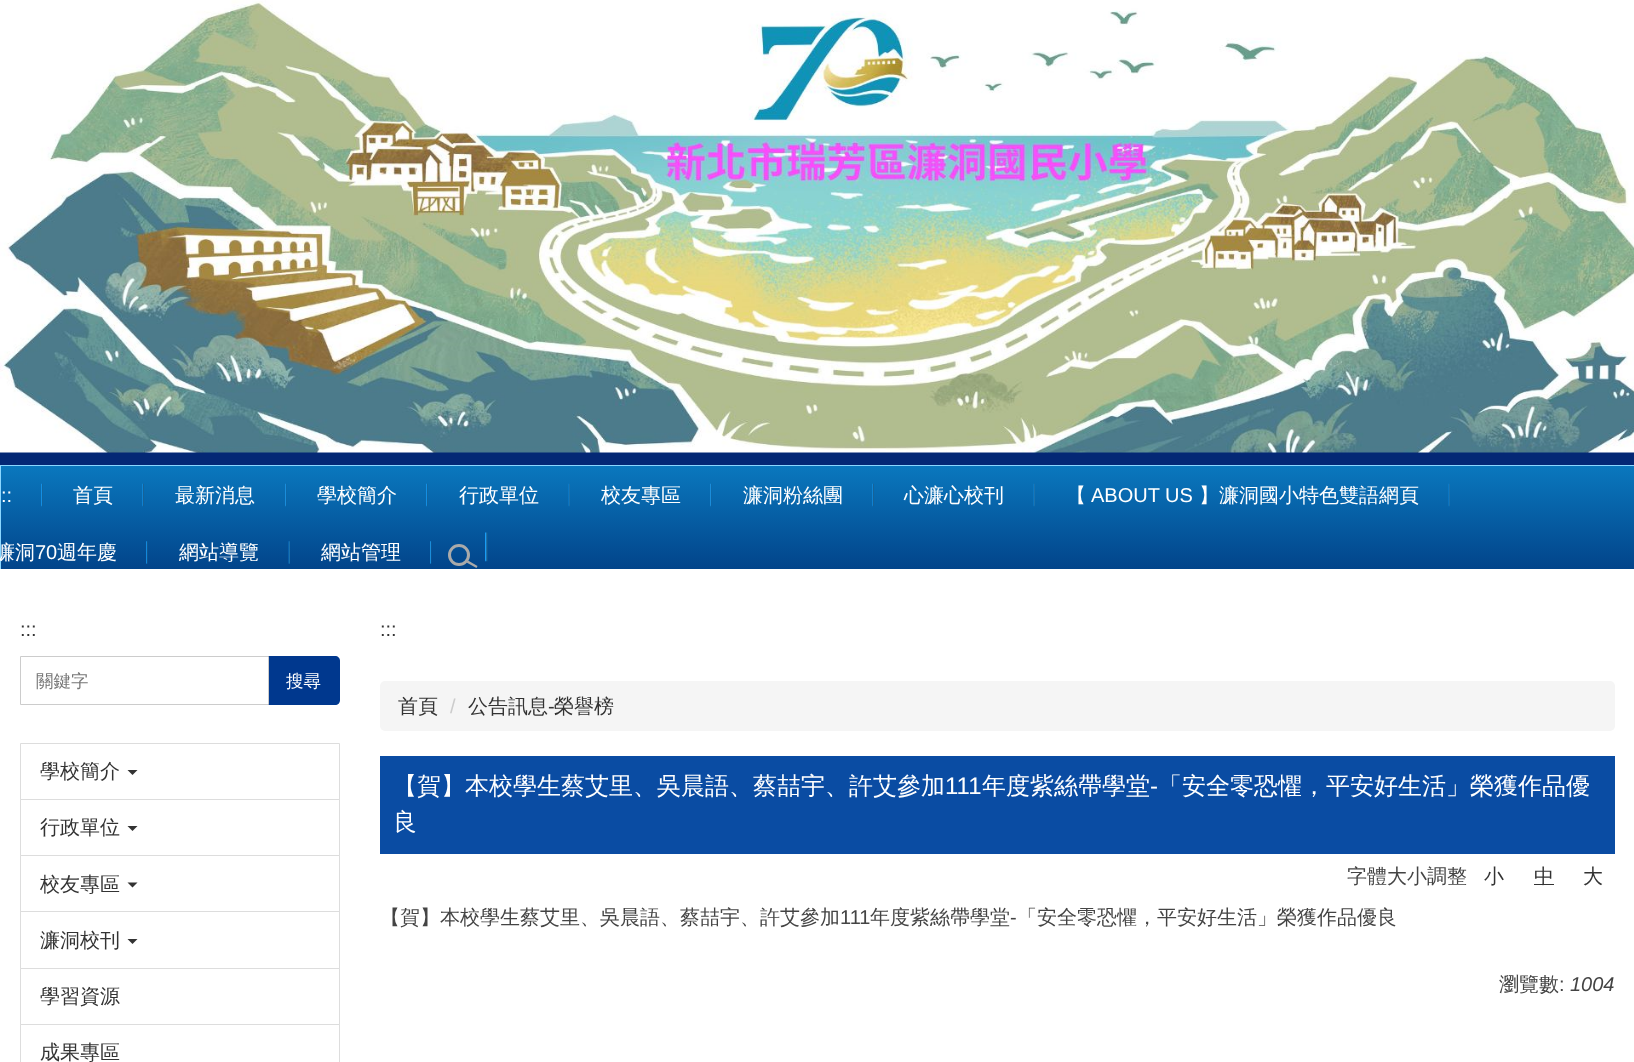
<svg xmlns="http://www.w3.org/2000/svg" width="1634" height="1062">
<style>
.a{font:20px Liberation Sans;fill:#fff}
.b{font:500 20px WenQuanYi Zen Hei;fill:#fff}
.c{font:20px Liberation Sans;fill:#333}
.d{font:500 17.5px WenQuanYi Zen Hei;fill:#777}
.e{font:500 17.5px WenQuanYi Zen Hei;fill:#fff}
.f{font:500 20px WenQuanYi Zen Hei;fill:#333}
.g{font:20px Liberation Sans;fill:#ccc}
.h{font:500 24px WenQuanYi Zen Hei;fill:#fff}
.i{font:24px Liberation Sans;fill:#fff}
.j{font:500 20px WenQuanYi Zen Hei;fill:#444}
.k{font:20px Liberation Sans;fill:#444}
.l{font:italic 20px Liberation Sans;fill:#444}
</style>
<defs>
<linearGradient id="g1" gradientUnits="userSpaceOnUse" x1="818" y1="466" x2="818" y2="569"><stop offset="0" stop-color="#0a78be"/><stop offset="1" stop-color="#02448a"/></linearGradient>
</defs>
<rect width="100%" height="100%" fill="#fff"/>
<path fill="#042875" d="M0 452h1634v13H0z"/>
<image href="1.png" x="0" y="0" width="1634" height="453"/>
<path fill="url(#g1)" d="M1 466h1633v103H1z"/>
<path fill="#8bd7ff" d="M0 465h1634v1H0z"/>
<path fill="#8bd7ff" d="M0 465h1v104H0z"/>
<image href="2.png" x="41" y="483" width="2" height="24"/>
<image href="3.png" x="142" y="483" width="2" height="24"/>
<image href="4.png" x="285" y="483" width="2" height="24"/>
<image href="2.png" x="426" y="483" width="2" height="24"/>
<image href="5.png" x="568" y="483" width="2" height="24"/>
<image href="4.png" x="710" y="483" width="2" height="24"/>
<image href="3.png" x="872" y="483" width="2" height="24"/>
<image href="5.png" x="1033" y="483" width="2" height="24"/>
<image href="5.png" x="1448" y="483" width="2" height="24"/>
<image href="6.png" x="146" y="541" width="2" height="23"/>
<image href="7.png" x="288" y="541" width="2" height="23"/>
<image href="8.png" x="430" y="541" width="2" height="23"/>
<image href="9.png" x="485" y="532" width="3" height="30"/>
<circle fill="none" stroke="#aaa" stroke-width="3" cx="459" cy="555" r="9.5"/>
<path fill="#aaa" d="M468 560.5l9.5 5.5l-1 2l-10-5.5z"/>
<path fill="#00388e" d="M268 656h67c3 0 5 2 5 5v39c0 3-2 5-5 5h-67z"/>
<path fill="none" stroke="#ccc" d="M20.5 656.5h248v48H20.5z"/>
<path fill="none" stroke="#ddd" d="M20.5 743.5h319v56H20.5z"/>
<path fill="#333" d="M127.5 770h10l-5 5z"/>
<path fill="none" stroke="#ddd" d="M20.5 799.5h319v56H20.5z"/>
<path fill="#333" d="M127.5 826h10l-5 5z"/>
<path fill="none" stroke="#ddd" d="M20.5 855.5h319v57H20.5z"/>
<path fill="#333" d="M127.5 882.5h10l-5 5z"/>
<path fill="#fff" d="M21 912h318v1H21z"/>
<path fill="none" stroke="#ddd" d="M20.5 911.5h319v57H20.5z"/>
<path fill="#333" d="M127.5 939h10l-5 5z"/>
<path fill="none" stroke="#ddd" d="M20.5 968.5h319v56H20.5z"/>
<path fill="none" stroke="#ddd" d="M20.5 1024.5h319v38H20.5z"/>
<rect fill="#f5f5f5" x="380" y="681" width="1235" height="50" rx="5"/>
<path fill="#0a4ca3" d="M380 756h1235v98H380z"/>
<path fill="#333" d="M1534 884h20v1H1534z"/>
<text class="a" x="1" y="502">::</text>
<text class="b" x="73" y="502">首頁</text>
<text class="b" x="175" y="502">最新消息</text>
<text class="b" x="317" y="502">學校簡介</text>
<text class="b" x="459" y="502">行政單位</text>
<text class="b" x="601" y="502">校友專區</text>
<text class="b" x="743" y="502">濂洞粉絲團</text>
<text class="b" x="904" y="502">心濂心校刊</text>
<text class="b" x="1066" y="502">【</text>
<text class="a" x="1091" y="502">ABOUT US</text>
<text class="b" x="1199" y="502">】濂洞國小特色雙語網頁</text>
<text class="b" x="-5" y="559">濂洞</text>
<text class="a" x="35" y="559">70</text>
<text class="b" x="57" y="559">週年慶</text>
<text class="b" x="179" y="559">網站導覽</text>
<text class="b" x="321" y="559">網站管理</text>
<text class="c" x="20" y="636">:::</text>
<text class="d" x="36" y="687">關鍵字</text>
<text class="e" x="286" y="687">搜尋</text>
<text class="f" x="40" y="778">學校簡介</text>
<text class="f" x="40" y="834">行政單位</text>
<text class="f" x="40" y="891">校友專區</text>
<text class="f" x="40" y="947">濂洞校刊</text>
<text class="f" x="40" y="1003">學習資源</text>
<text class="f" x="40" y="1059">成果專區</text>
<text class="c" x="380" y="636">:::</text>
<text class="f" x="398" y="713">首頁</text>
<text class="g" x="450" y="713">/</text>
<text class="f" x="468" y="713">公告訊息</text>
<text class="c" x="548" y="713">-</text>
<text class="f" x="554" y="713">榮譽榜</text>
<text class="h" x="393" y="794">【賀】本校學生蔡艾里、吳晨語、蔡喆宇、許艾參加</text>
<text class="i" x="945" y="794">111</text>
<text class="h" x="982" y="794">年度紫絲帶學堂</text>
<text class="i" x="1150" y="794">-</text>
<text class="h" x="1158" y="794">「安全零恐懼，平安好生活」榮獲作品優</text>
<text class="h" x="393" y="830">良</text>
<text class="j" x="1347" y="883">字體大小調整</text>
<text class="f" x="1484" y="883">小</text>
<text class="f" x="1534" y="883">中</text>
<text class="f" x="1583" y="883">大</text>
<text class="j" x="380" y="924">【賀】本校學生蔡艾里、吳晨語、蔡喆宇、許艾參加</text>
<text class="k" x="840" y="924">111</text>
<text class="j" x="870" y="924">年度紫絲帶學堂</text>
<text class="k" x="1010" y="924">-</text>
<text class="j" x="1017" y="924">「安全零恐懼，平安好生活」榮獲作品優良</text>
<text class="j" x="1499" y="991">瀏覽數</text>
<text class="k" x="1559" y="991">:</text>
<text class="l" x="1570" y="991">1004</text>
</svg>
